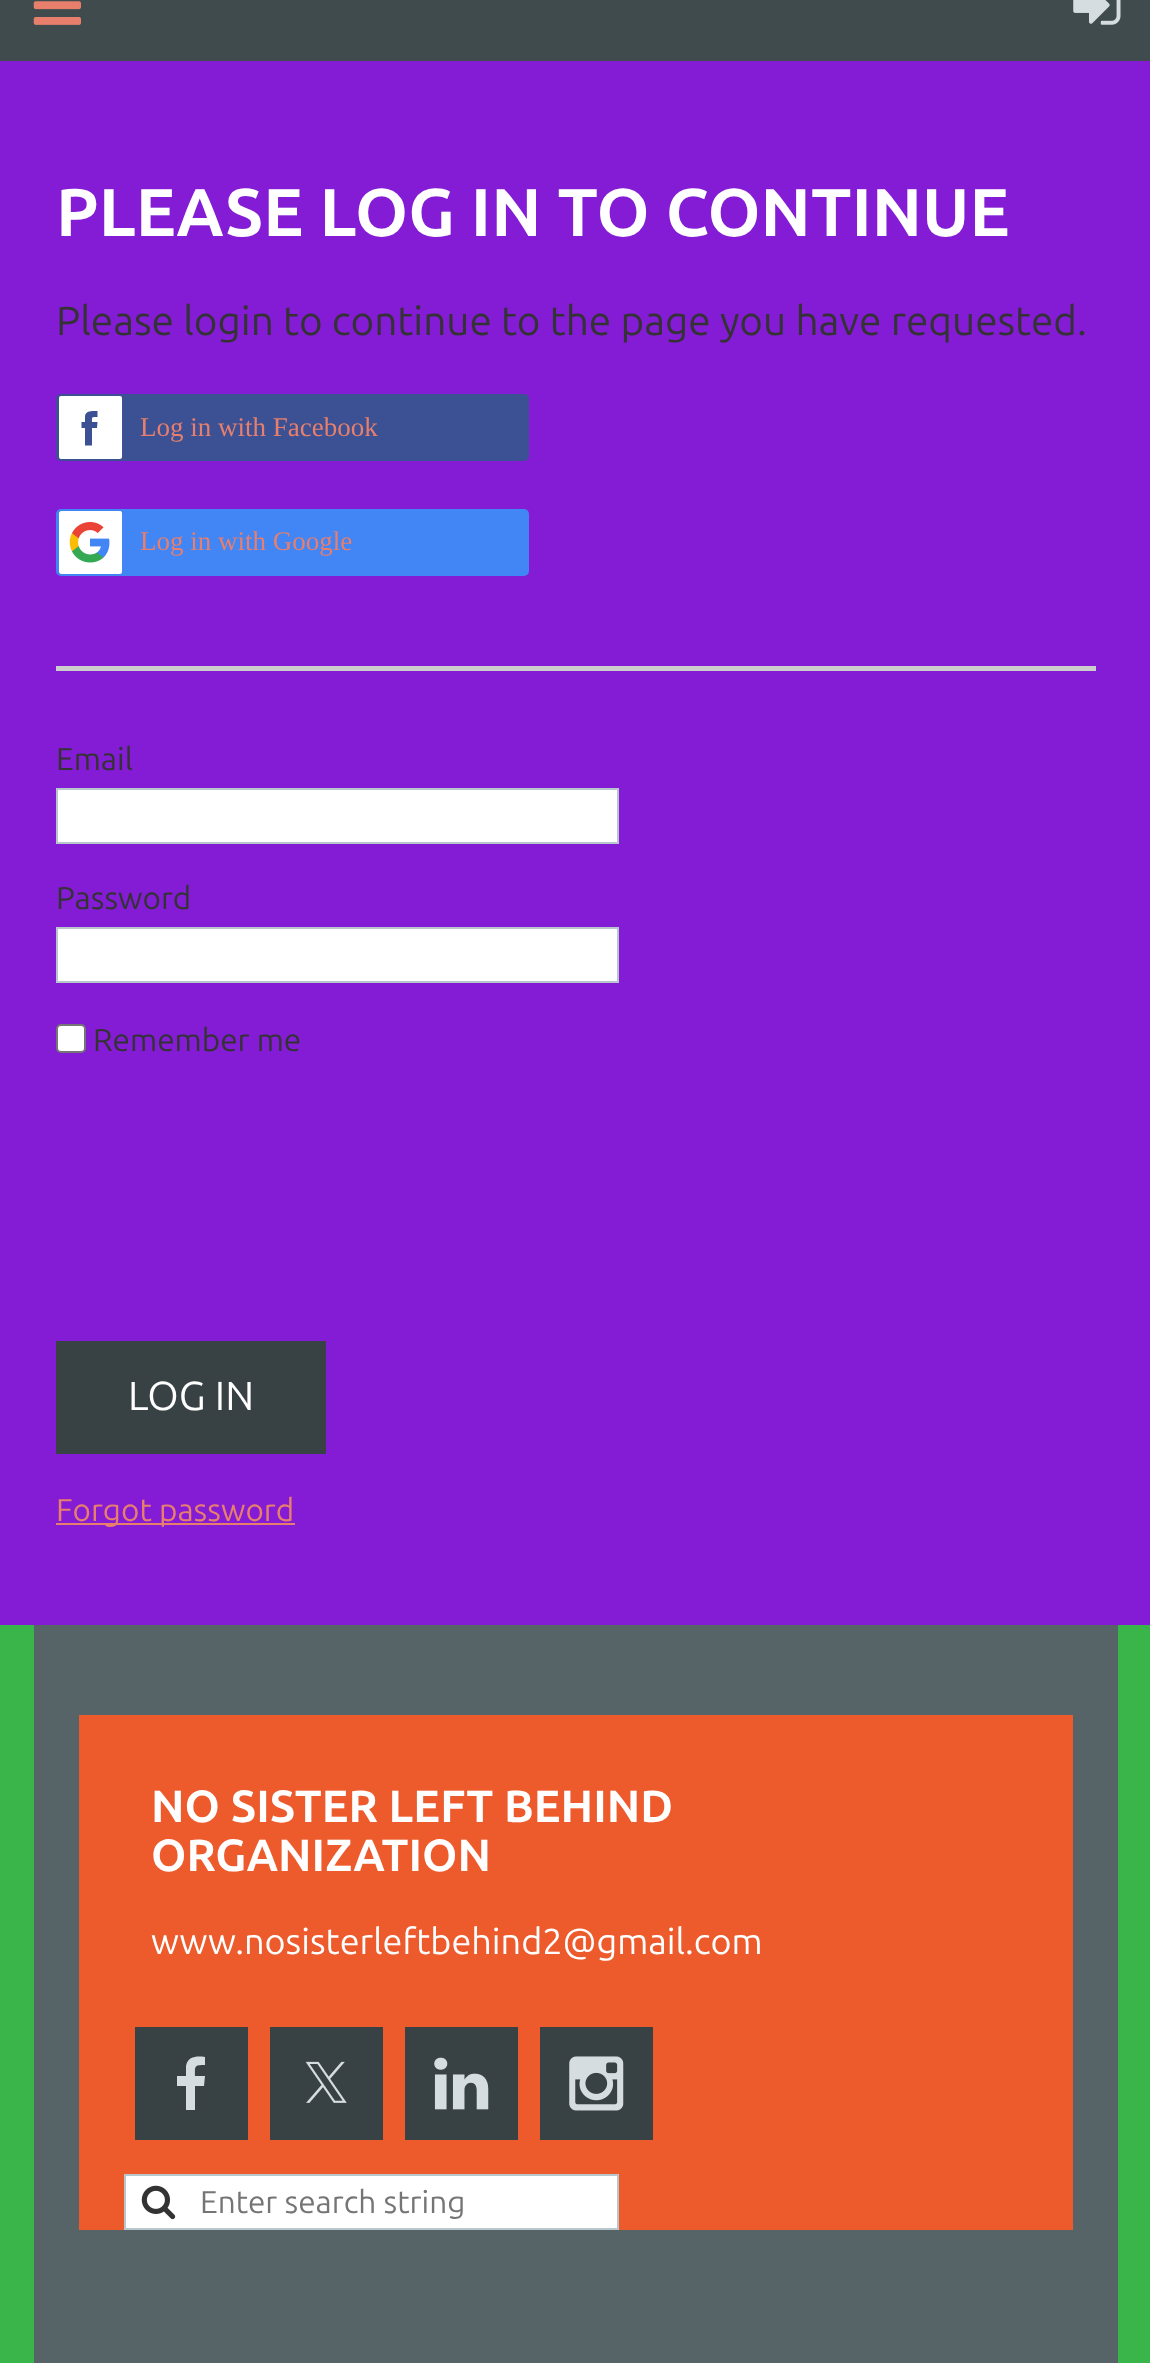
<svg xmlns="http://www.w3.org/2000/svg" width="1150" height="2363">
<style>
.a{font:bold 67.5px Ubuntu;fill:#fff}
.b{font:40.5px Ubuntu;fill:#333}
.c{font:27px Liberation Serif;fill:#e87f6d}
.d{font:31.5px Ubuntu;fill:#333}
.e{font:40.5px Ubuntu;fill:#fff}
.f{font:31.5px Ubuntu;fill:#e87f6d}
.g{font:bold 45px Ubuntu;fill:#fff}
.h{font:36px Ubuntu;fill:#fff}
.i{font:31.5px Ubuntu;fill:#757575}
</style>
<rect width="100%" height="100%" fill="#831cd4"/>
<path fill="#404b4d" d="M0 0h1150v61H0z"/>
<image href="1.png" x="33" y="1" width="48" height="24"/>
<image href="2.png" x="1073" y="0" width="48" height="25"/>
<rect fill="#3c5193" stroke="#3c5193" stroke-width="2" x="57" y="395" width="471" height="65" rx="4"/>
<rect fill="#fff" x="59" y="396" width="63" height="63" rx="2"/>
<path fill="#3c5193" fill-rule="evenodd" d="M81.5 422v6h3.5v17.5h7v-17.5h5l.5-6h-5.5c0-5.5-.5-5 5.5-5v-6c-4.5 0-11.5-1-12.5 5v6z"/>
<rect fill="#4285f4" stroke="#4285f4" stroke-width="2" x="57" y="510" width="471" height="65" rx="4"/>
<image href="3.png" x="59" y="511" width="63" height="63"/>
<path fill="#cdcdcd" d="M56 666h1040v5H56z"/>
<path fill="#fff" stroke="#b8c6cd" stroke-width="2" d="M57 789h561v54H57z"/>
<path fill="#fff" stroke="#b8c6cd" stroke-width="2" d="M57 928h561v54H57z"/>
<rect fill="#fff" stroke="#767676" stroke-width="2" x="57" y="1025" width="28" height="27" rx="4"/>
<path fill="#384244" d="M56 1341h270v113H56z"/>
<path fill="#e87f6d" d="M56 1523h239v2H56z"/>
<path fill="#39b54a" d="M0 1625h1150v738H0z"/>
<path fill="#566467" d="M34 1625h1084v738H34z"/>
<path fill="#ed5a2c" d="M79 1715h994v515H79z"/>
<path fill="#384244" d="M135 2027h113v113H135z"/>
<path fill="#d6dde1" d="M205 2065c-11 0-10 1-10 11h10l-1 10h-9v24h-9v-24h-9v-10h9v-10c2-10 11-10 19-9z"/>
<path fill="#384244" d="M270 2027h113v113H270z"/>
<image href="4.png" x="305" y="2061" width="42" height="42"/>
<path fill="#384244" d="M405 2027h113v113H405z"/>
<image href="5.png" x="434" y="2057" width="55" height="53"/>
<path fill="#384244" d="M540 2027h113v113H540z"/>
<image href="6.png" x="569" y="2056" width="55" height="55"/>
<path fill="#fff" stroke="#b8c6cd" stroke-width="2" d="M125 2175h493v54H125z"/>
<image href="7.png" x="141" y="2185" width="35" height="35"/>
<text class="a" x="56" y="236">PLEASE LOG IN TO CONTINUE</text>
<text class="b" x="56" y="335">Please login to continue to the page you have requested.</text>
<text class="c" x="140" y="436">Log in with Facebook</text>
<text class="c" x="140" y="550">Log in with Google</text>
<text class="d" x="56" y="770">Email</text>
<text class="d" x="56" y="909">Password</text>
<text class="d" x="93" y="1051">Remember me</text>
<text class="e" x="128" y="1410">LOG IN</text>
<text class="f" x="56" y="1521">Forgot password</text>
<text class="g" x="151" y="1822">NO SISTER LEFT BEHIND</text>
<text class="g" x="151" y="1871">ORGANIZATION</text>
<text class="h" x="151" y="1954">www.nosisterleftbehind2@gmail.com</text>
<text class="i" x="200" y="2213">Enter search string</text>
</svg>
